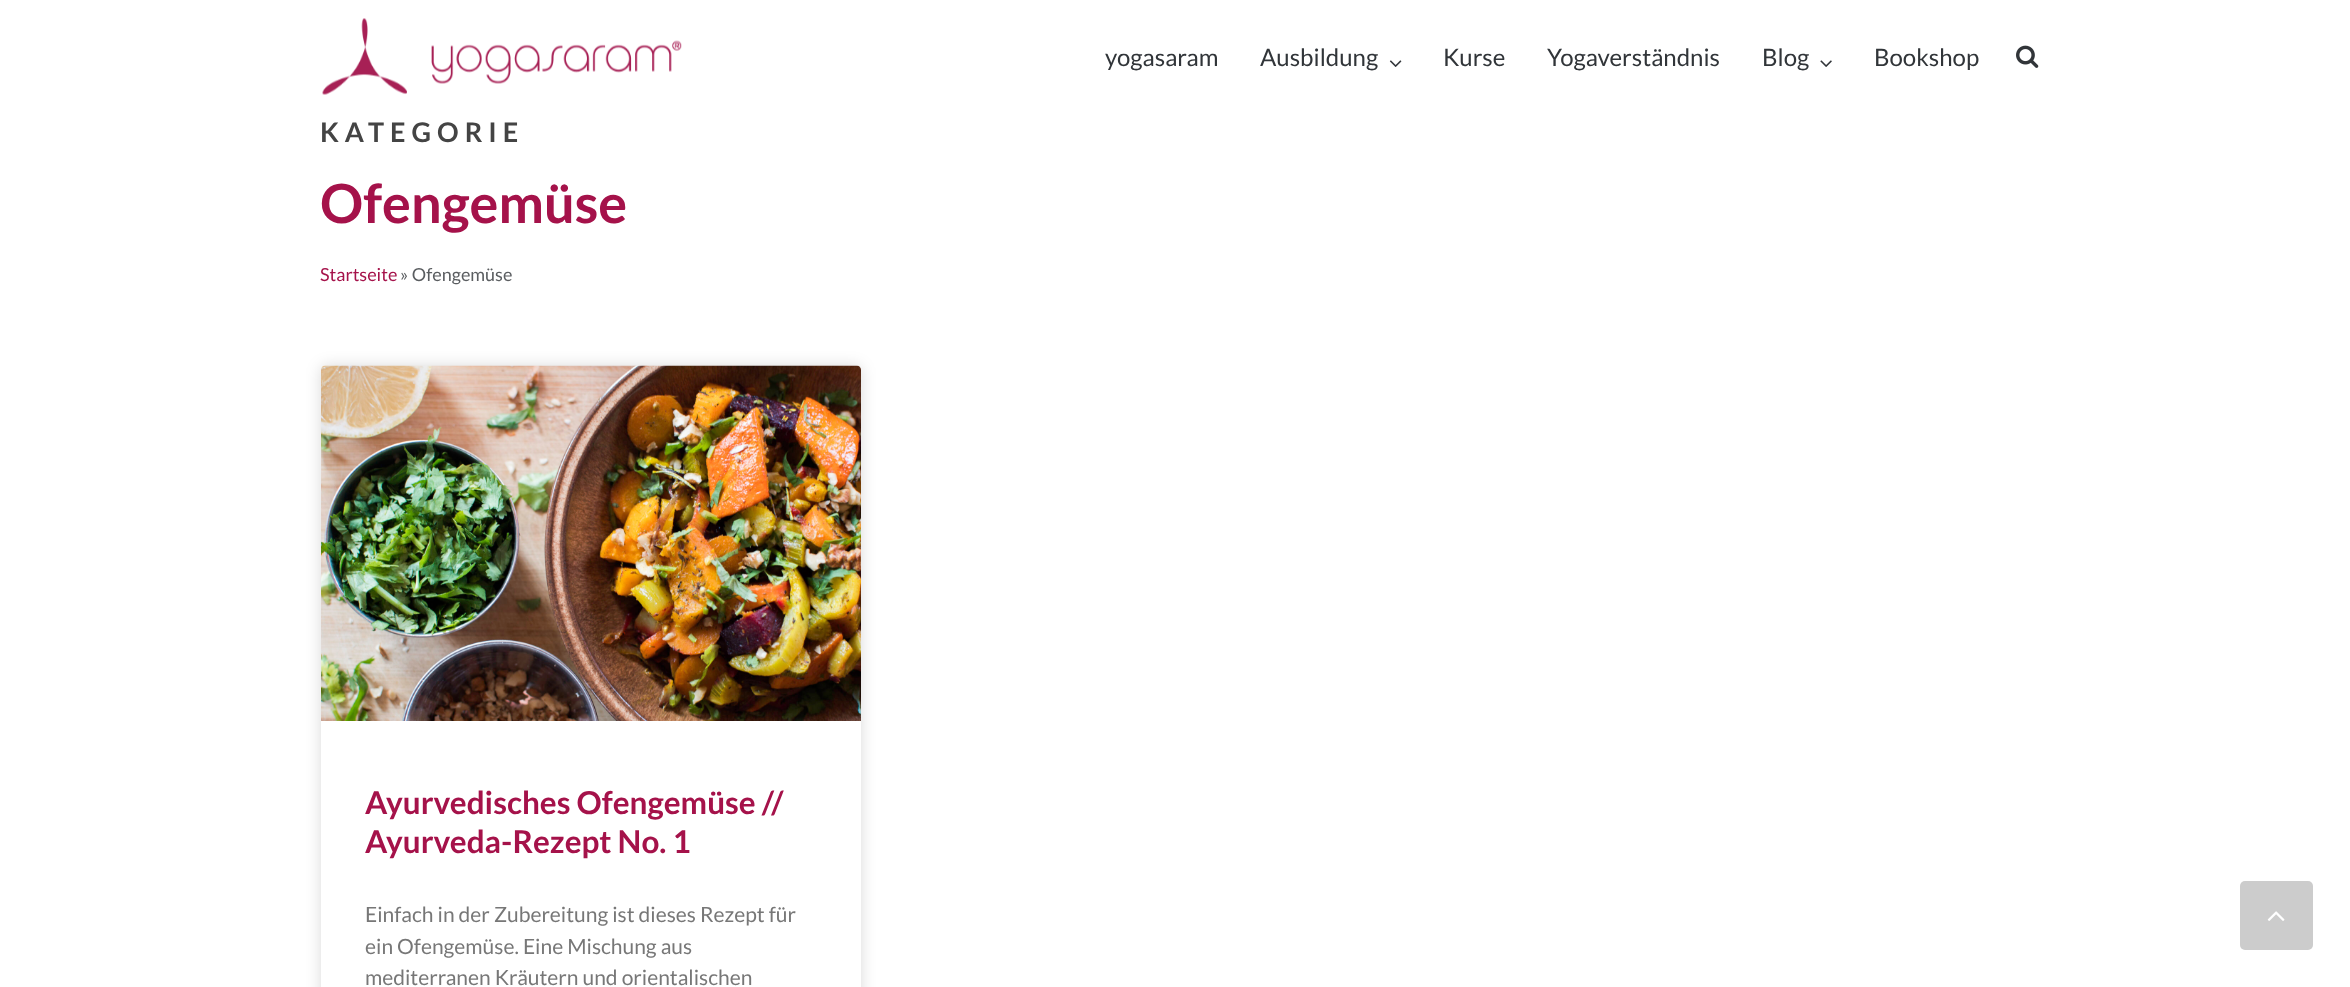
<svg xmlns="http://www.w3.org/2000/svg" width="2350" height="987">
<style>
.a{font:24px Lato;fill:#313539}
.b{font:bold 27px Lato;letter-spacing:6px;fill:#444}
.c{font:bold 54px Lato;fill:#a5124a}
.d{font:18px Lato;fill:#a5124a}
.e{font:18px Lato;fill:#5a5d60}
.f{font:bold 31.5px Lato;fill:#a5124a}
.g{font:21px Lato;fill:#777}
</style>
<rect width="100%" height="100%" fill="#fff"/>
<image href="1.png" x="322" y="18" width="360" height="77"/>
<image href="2.png" x="1389" y="60" width="13" height="7"/>
<image href="3.png" x="1820" y="60" width="12" height="7"/>
<image href="4.png" x="2016" y="45" width="23" height="23"/>
<rect fill="#00000026" filter="blur(7.5px)" x="321" y="366" width="540" height="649" rx="5"/>
<rect fill="#fff" x="321" y="366" width="540" height="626" rx="5"/>
<image href="5.png" x="321" y="365" width="540" height="356"/>
<rect fill="#ccc" x="2240" y="881" width="73" height="69" rx="5"/>
<image href="6.png" x="2267" y="911" width="18" height="10"/>
<text class="a" x="1105" y="66">yogasaram</text>
<text class="a" x="1260" y="66">Ausbildung</text>
<text class="a" x="1443" y="66">Kurse</text>
<text class="a" x="1547" y="66">Yogaverständnis</text>
<text class="a" x="1762" y="66">Blog</text>
<text class="a" x="1874" y="66">Bookshop</text>
<text class="b" x="320" y="142">KATEGORIE</text>
<text class="c" x="320" y="223">Ofengemüse</text>
<text class="d" x="320" y="281">Startseite</text>
<text class="e" x="400" y="281">» Ofengemüse</text>
<text class="f" x="365" y="814">Ayurvedisches Ofengemüse //</text>
<text class="f" x="365" y="853">Ayurveda-Rezept No. 1</text>
<text class="g" x="365" y="922">Einfach in der Zubereitung ist dieses Rezept für</text>
<text class="g" x="365" y="954">ein Ofengemüse. Eine Mischung aus</text>
<text class="g" x="365" y="985">mediterranen Kräutern und orientalischen</text>
</svg>
